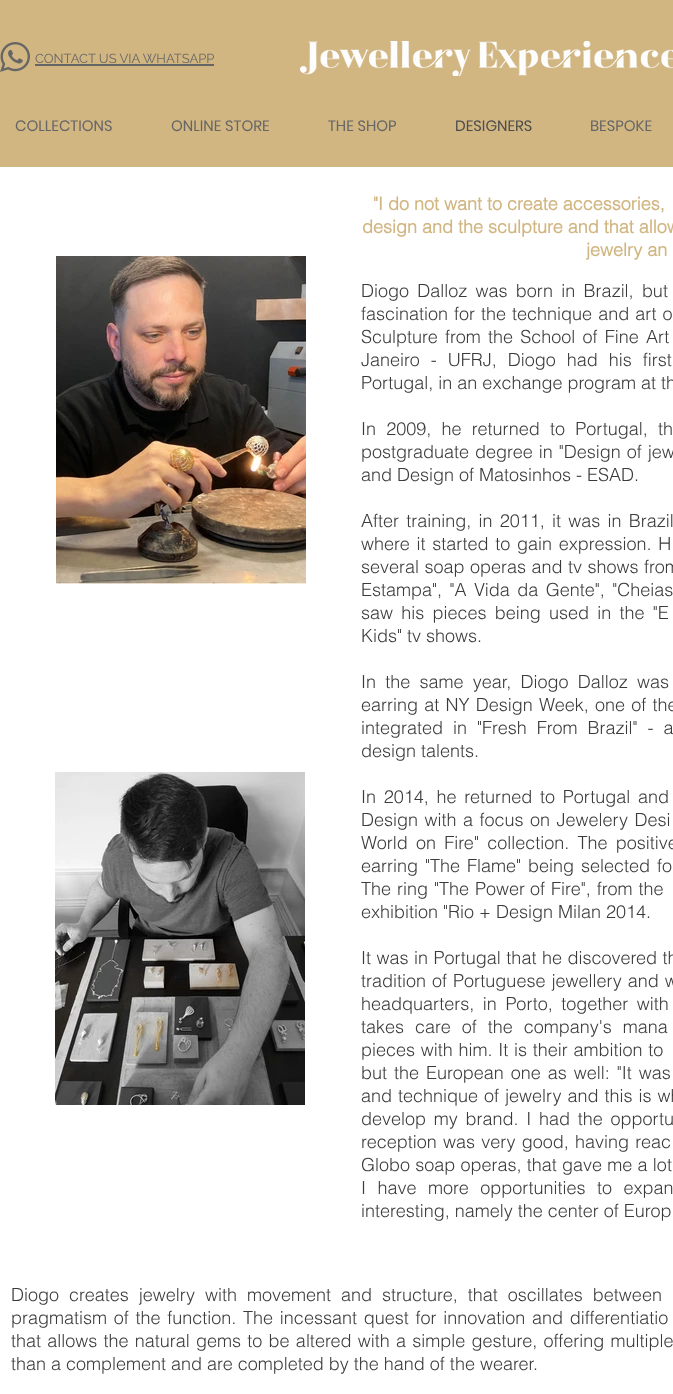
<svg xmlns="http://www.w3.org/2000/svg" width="673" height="1394">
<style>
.a{font:13px Raleway;fill:#676666}
.b{font:15px Poppins;fill:#676666}
.c{font:15px Poppins;fill:#4d4d4d}
.d{font:bold 18px helvetica;fill:#d1b682}
.e{font:300 18px helvetica;fill:#3b3b3b}
</style>
<rect width="100%" height="100%" fill="#fff"/>
<path fill="#d1b682" d="M0 0h673v167H0z"/>
<image href="1.png" x="0" y="42" width="30" height="30"/>
<path fill="#676666" d="M35 64h179v2H35z"/>
<image href="2.png" x="300" y="41" width="373" height="35"/>
<image href="3.png" x="56" y="256" width="250" height="328"/>
<image href="4.png" x="55" y="772" width="250" height="333"/>
<text class="a" x="35" y="63">CONTACT US VIA WHATSAPP</text>
<text class="b" x="15" y="131">COLLECTIONS</text>
<text class="b" x="171" y="131">ONLINE STORE</text>
<text class="b" x="328" y="131">THE SHOP</text>
<text class="c" x="455" y="131">DESIGNERS</text>
<text class="b" x="590" y="131">BESPOKE</text>
<text class="d" x="373" y="210">"I do not want to create accessories,</text>
<text class="d" x="362" y="233">design and the sculpture and that allow</text>
<text class="d" x="586" y="256">jewelry an</text>
<text class="e" x="361" y="297" word-spacing="3.25">Diogo Dalloz was born in Brazil, but</text>
<text class="e" x="361" y="320" word-spacing="1">fascination for the technique and art o</text>
<text class="e" x="361" y="343" word-spacing="2.25">Sculpture from the School of Fine Art</text>
<text class="e" x="361" y="366" word-spacing="6">Janeiro - UFRJ, Diogo had his first</text>
<text class="e" x="361" y="389">Portugal, in an exchange program at th</text>
<text class="e" x="361" y="435" word-spacing="5.25">In 2009, he returned to Portugal, th</text>
<text class="e" x="361" y="458" word-spacing="1">postgraduate degree in "Design of jew</text>
<text class="e" x="361" y="481">and Design of Matosinhos - ESAD.</text>
<text class="e" x="361" y="527" word-spacing="2.25">After training, in 2011, it was in Brazil</text>
<text class="e" x="361" y="550" word-spacing="1.75">where it started to gain expression. H</text>
<text class="e" x="361" y="573" word-spacing="0.5">several soap operas and tv shows from</text>
<text class="e" x="361" y="596" word-spacing="2.5">Estampa", "A Vida da Gente", "Cheias</text>
<text class="e" x="361" y="619" word-spacing="3.25">saw his pieces being used in the "E</text>
<text class="e" x="361" y="642">Kids" tv shows.</text>
<text class="e" x="361" y="688" word-spacing="4.25">In the same year, Diogo Dalloz was</text>
<text class="e" x="361" y="711" word-spacing="1.25">earring at NY Design Week, one of the</text>
<text class="e" x="361" y="734" word-spacing="5">integrated in "Fresh From Brazil" - a</text>
<text class="e" x="361" y="757">design talents.</text>
<text class="e" x="361" y="803" word-spacing="2.75">In 2014, he returned to Portugal and</text>
<text class="e" x="361" y="826" word-spacing="1.5">Design with a focus on Jewelery Desi</text>
<text class="e" x="361" y="849" word-spacing="3.25">World on Fire" collection. The positive</text>
<text class="e" x="361" y="872" word-spacing="2">earring "The Flame" being selected fo</text>
<text class="e" x="361" y="895" word-spacing="1">The ring "The Power</text>
<text class="e" x="530" y="895" word-spacing="1">of Fire", from the</text>
<text class="e" x="361" y="918">exhibition "Rio + Design Milan 2014.</text>
<text class="e" x="361" y="964" word-spacing="0.5">It was in Portugal that he discovered th</text>
<text class="e" x="361" y="987" word-spacing="1">tradition of Portuguese jewellery and w</text>
<text class="e" x="361" y="1010" word-spacing="3.5">headquarters, in Porto, together with</text>
<text class="e" x="361" y="1033" word-spacing="6">takes care of the company's mana</text>
<text class="e" x="361" y="1056" word-spacing="0.75">pieces with him. It is their ambition to</text>
<text class="e" x="361" y="1079" word-spacing="2">but the European one as well: "It was</text>
<text class="e" x="361" y="1102" word-spacing="1">and technique of jewelry and this is wh</text>
<text class="e" x="361" y="1125" word-spacing="2.75">develop my brand. I had the opportu</text>
<text class="e" x="361" y="1148" word-spacing="1.25">reception was very good, having reac</text>
<text class="e" x="361" y="1171" word-spacing="0.25">Globo soap operas, that gave me a lot</text>
<text class="e" x="361" y="1194" word-spacing="6.5">I have more opportunities to expan</text>
<text class="e" x="361" y="1217">interesting, namely the center of Europ</text>
<text class="e" x="11" y="1301" word-spacing="5">Diogo creates jewelry with movement and structure, that oscillates between</text>
<text class="e" x="11" y="1324" word-spacing="1.75">pragmatism of the function. The incessant quest for innovation and differentiatio</text>
<text class="e" x="11" y="1347" word-spacing="1.25">that allows the natural gems to be altered with a simple gesture, offering multiple</text>
<text class="e" x="11" y="1370">than a complement and are completed by the hand of the wearer.</text>
</svg>
